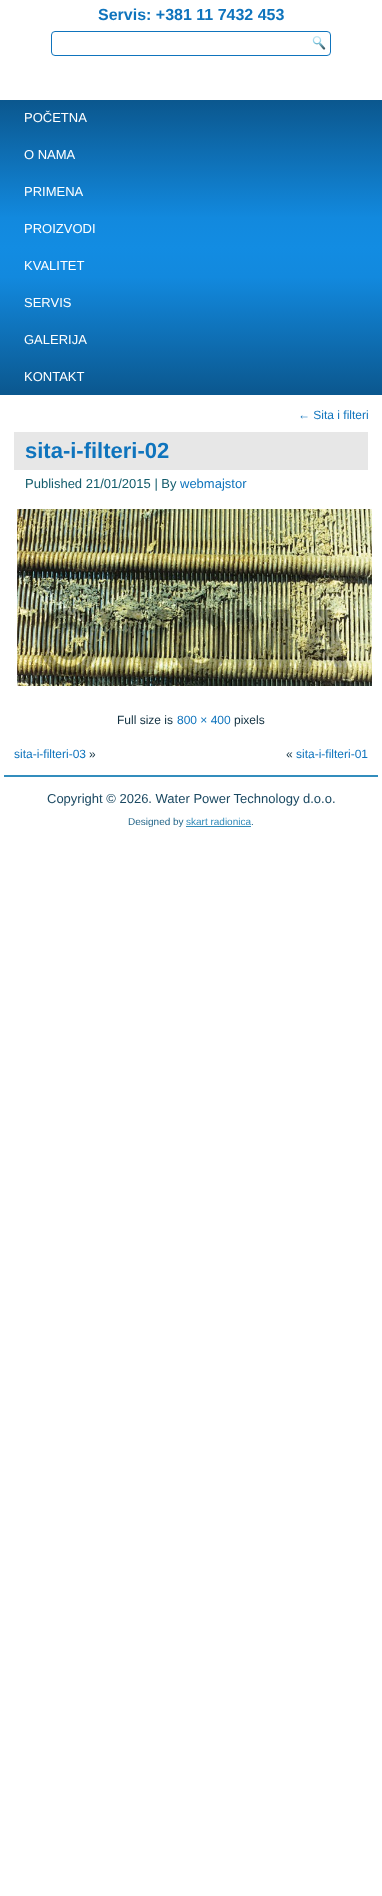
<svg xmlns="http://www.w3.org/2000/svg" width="382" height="1896">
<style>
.a{font:bold 16px Liberation Sans;fill:#0f74bd}
.b{font:13px Liberation Sans;fill:#fff}
.c{font:12px Liberation Sans;fill:#0f74bd}
.d{font:bold 22px Liberation Sans;fill:#0f74bd}
.e{font:13px Liberation Sans;fill:#135c6c}
.f{font:13px Liberation Sans;fill:#0f74bd}
.g{font:12px Liberation Sans;fill:#113040}
.h{font:13px Liberation Sans;fill:#1a4861}
.i{font:10px Liberation Sans;fill:#246689}
.j{font:10px Liberation Sans;fill:#318ab9}
</style>
<defs>
<linearGradient id="g1" gradientUnits="userSpaceOnUse" x1="191" y1="100" x2="191" y2="395"><stop offset="0" stop-color="#0b578e"/><stop offset="0.4" stop-color="#1289de"/><stop offset="0.5" stop-color="#128ce2"/><stop offset="0.6" stop-color="#1289de"/><stop offset="1" stop-color="#0b578e"/></linearGradient>
</defs>
<rect width="100%" height="100%" fill="#fff"/>
<rect fill="none" stroke="#0f74bd" x="51.5" y="31.5" width="279" height="24" rx="3.5"/>
<image href="1.png" x="312" y="36" width="14" height="14"/>
<path fill="url(#g1)" d="M0 100h382v295H0z"/>
<path fill="#328dbd" d="M4 775h374v2H4z"/>
<path fill="#e7e7e7" d="M14 432h354v38H14z"/>
<image href="2.png" x="17" y="509" width="355" height="177"/>
<path fill="#318ab9" d="M186 826h65v1H186z"/>
<text class="a" x="98" y="20">Servis: +381 11 7432 453</text>
<text class="b" x="24" y="122">POČETNA</text>
<text class="b" x="24" y="159">O NAMA</text>
<text class="b" x="24" y="196">PRIMENA</text>
<text class="b" x="24" y="233">PROIZVODI</text>
<text class="b" x="24" y="270">KVALITET</text>
<text class="b" x="24" y="307">SERVIS</text>
<text class="b" x="24" y="344">GALERIJA</text>
<text class="b" x="24" y="381">KONTAKT</text>
<text class="c" x="298" y="419">← Sita i filteri</text>
<text class="d" x="25" y="458">sita-i-filteri-02</text>
<text class="e" x="25" y="488">Published 21/01/2015 | By</text>
<text class="f" x="180" y="488">webmajstor</text>
<text class="g" x="117" y="724">Full size is</text>
<text class="c" x="177" y="724">800 × 400</text>
<text class="g" x="234" y="724">pixels</text>
<text class="c" x="14" y="758">sita-i-filteri-03</text>
<text class="g" x="89" y="758">»</text>
<text class="g" x="286" y="758">«</text>
<text class="c" x="296" y="758">sita-i-filteri-01</text>
<text class="h" x="47" y="803">Copyright © 2026. Water Power Technology d.o.o.</text>
<text class="i" x="128" y="825">Designed by</text>
<text class="j" x="186" y="825">skart radionica</text>
<text class="i" x="251" y="825">.</text>
</svg>
